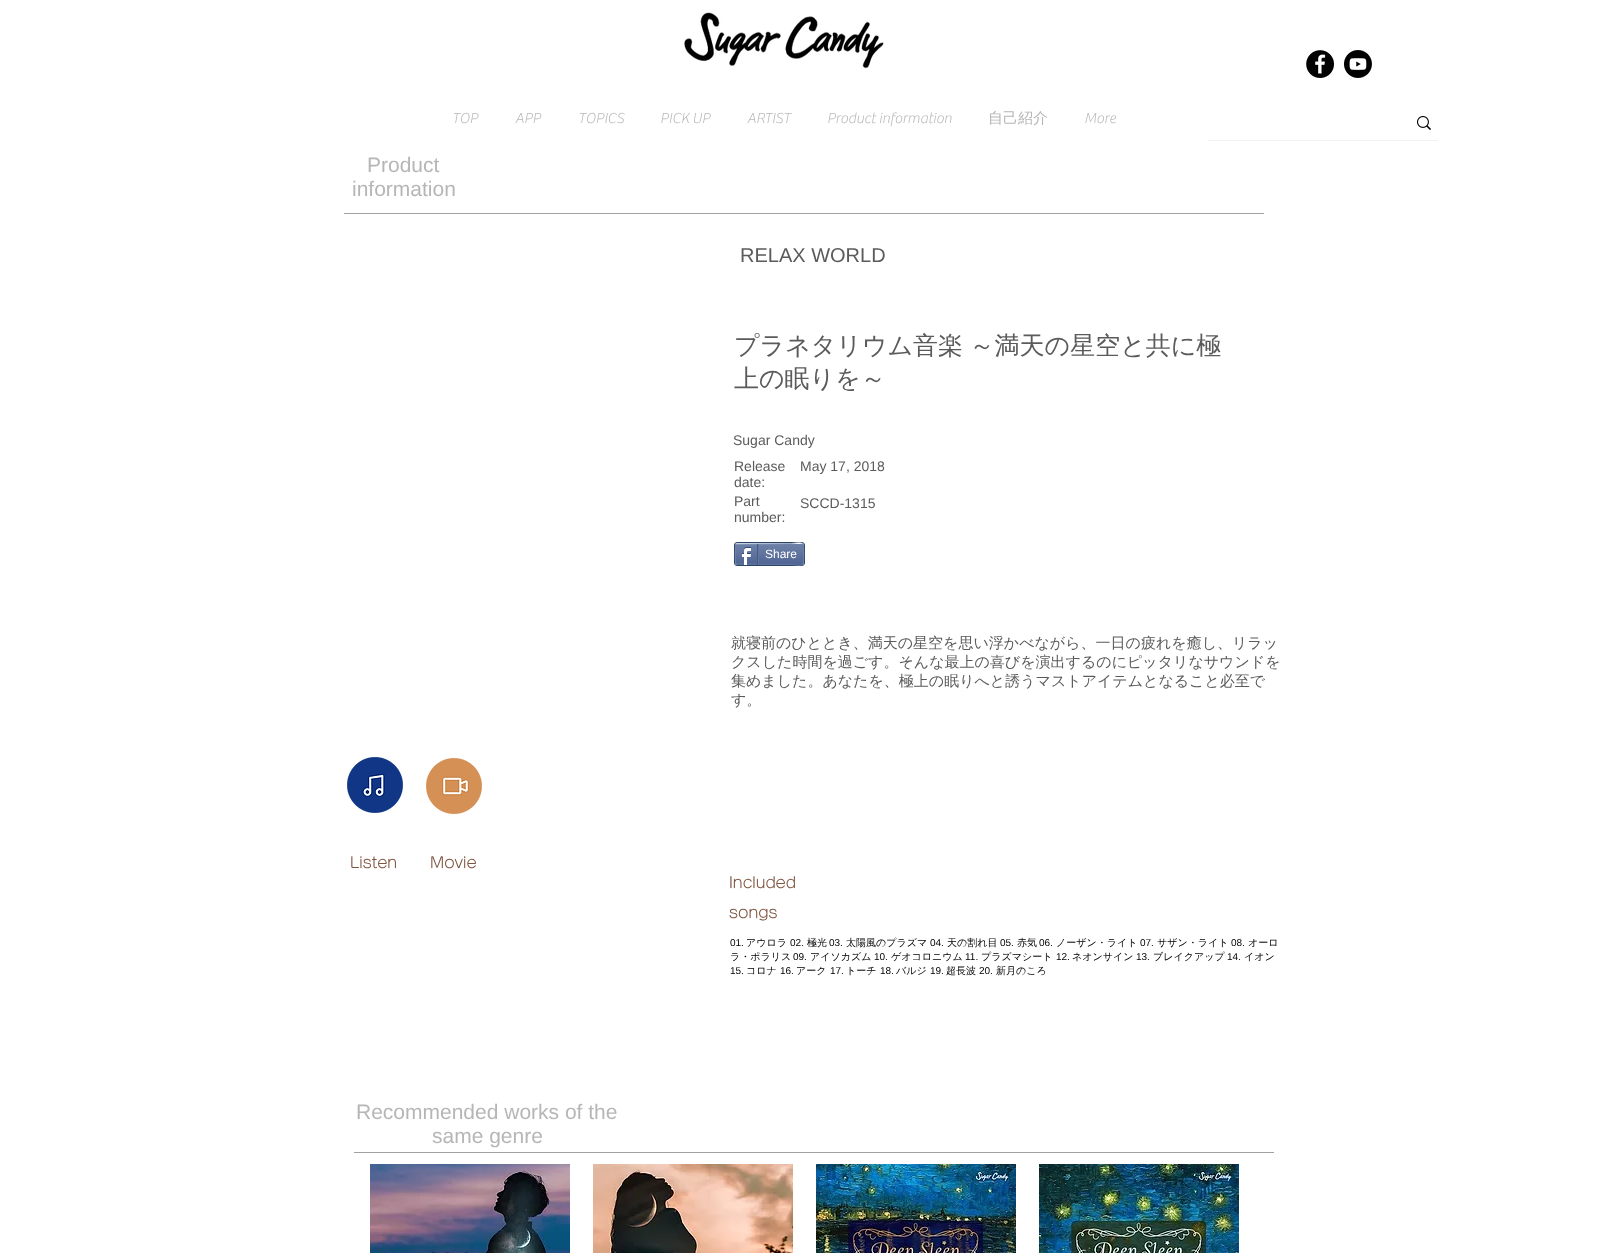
<svg xmlns="http://www.w3.org/2000/svg" width="1607" height="1253">
<style>
.a{font:100 15px 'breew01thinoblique';fill:#b6b6b6}
.b{font:500 15px WenQuanYi Zen Hei;fill:#b6b6b6}
.c{font:21px Liberation Sans;fill:#b6b6b6}
.d{font:20px Liberation Sans;fill:#5b5b5b}
.e{font:500 25px WenQuanYi Zen Hei;fill:#5b5b5b}
.f{font:14px Liberation Sans;fill:#5b5b5b}
.g{font:12px Liberation Sans;fill:#fff}
.h{font:500 15px WenQuanYi Zen Hei;fill:#5b5b5b}
.i{font:500 15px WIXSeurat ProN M;fill:#7e5541}
.j{font:10px Liberation Sans;fill:#000}
.k{font:500 10px WenQuanYi Zen Hei;fill:#000}
</style>
<rect width="100%" height="100%" fill="#fff"/>
<image href="1.png" x="684" y="12" width="200" height="57"/>
<image href="2.png" x="1306" y="50" width="28" height="28"/>
<image href="3.png" x="1344" y="50" width="28" height="28"/>
<path fill="#f2f2f2" d="M1208 140h230v1H1208z"/>
<image href="4.png" x="1417" y="116" width="14" height="14"/>
<path fill="#a1a1a1" d="M344 213h920v1H344z"/>
<rect fill="none" stroke="#2d4565" x="734.5" y="542.5" width="70" height="23" rx="2.5"/>
<image href="5.png" x="735" y="544" width="69" height="21"/>
<path fill="none" stroke="#9aabc6" d="M736 544l55-.5c4 0 9-2.5 12 .5"/>
<path fill="none" stroke="#6f83ad" d="M803 544c1 .5 1 19.5 0 20"/>
<path fill="none" stroke="#6176a3" d="M803 564c-3 3-8 .5-12 .5l-55-.5"/>
<path fill="none" stroke="#6f83ad" d="M736 564c-1-.5-1-19.5 0-20"/>
<image href="6.png" x="741" y="547" width="10" height="18"/>
<path fill="#425e85" d="M757 544h1v21H757z"/>
<path fill="#6176a3" d="M758 544h1v20H758z"/>
<image href="7.png" x="347" y="757" width="56" height="56"/>
<image href="8.png" x="426" y="758" width="56" height="56"/>
<path fill="#a1a1a1" d="M354 1152h920v1H354z"/>
<image href="9.png" x="370" y="1164" width="200" height="89"/>
<image href="10.png" x="593" y="1164" width="200" height="89"/>
<image href="11.png" x="816" y="1164" width="200" height="89"/>
<image href="12.png" x="1039" y="1164" width="200" height="89"/>
<text class="a" x="452" y="123">TOP</text>
<text class="a" x="515" y="123">APP</text>
<text class="a" x="578" y="123">TOPICS</text>
<text class="a" x="660" y="123">PICK UP</text>
<text class="a" x="747" y="123">ARTIST</text>
<text class="a" x="827" y="123">Product information</text>
<text class="b" x="988" y="123">自己紹介</text>
<text class="a" x="1084" y="123">More</text>
<text class="c" x="367" y="172">Product</text>
<text class="c" x="352" y="196">information</text>
<text class="d" x="740" y="262">RELAX WORLD</text>
<text class="e" x="734" y="354" word-spacing="-1">プラネタリウム音楽 ～満天の星空と共に極</text>
<text class="e" x="734" y="387">上の眠りを～</text>
<text class="f" x="733" y="445">Sugar Candy</text>
<text class="f" x="734" y="471">Release</text>
<text class="f" x="734" y="487">date:</text>
<text class="f" x="800" y="471">May 17, 2018</text>
<text class="f" x="734" y="506">Part</text>
<text class="f" x="734" y="522">number:</text>
<text class="f" x="800" y="508">SCCD-1315</text>
<text class="g" x="765" y="558">Share</text>
<text class="h" x="731" y="648">就寝前のひととき、満天の星空を思い浮かべながら、一日の疲れを癒し、リラッ</text>
<text class="h" x="731" y="667">クスした時間を過ごす。そんな最上の喜びを演出するのにピッタリなサウンドを</text>
<text class="h" x="731" y="686">集めました。あなたを、極上の眠りへと誘うマストアイテムとなること必至で</text>
<text class="h" x="731" y="705">す。</text>
<text class="i" x="350" y="868">Listen</text>
<text class="i" x="430" y="868">Movie</text>
<text class="i" x="729" y="888">Included</text>
<text class="i" x="729" y="918">songs</text>
<text class="j" x="730" y="946">01.</text>
<text class="k" x="746" y="946">アウロラ</text>
<text class="j" x="790" y="946">02.</text>
<text class="k" x="807" y="946">極光</text>
<text class="j" x="829" y="946">03.</text>
<text class="k" x="846" y="946">太陽風のプラズマ</text>
<text class="j" x="930" y="946">04.</text>
<text class="k" x="947" y="946">天の割れ目</text>
<text class="j" x="1000" y="946">05.</text>
<text class="k" x="1017" y="946">赤気</text>
<text class="j" x="1039" y="946">06.</text>
<text class="k" x="1056" y="946">ノーザン・ライト</text>
<text class="j" x="1140" y="946">07.</text>
<text class="k" x="1157" y="946">サザン・ライト</text>
<text class="j" x="1231" y="946">08.</text>
<text class="k" x="1248" y="946">オーロ</text>
<text class="k" x="730" y="960">ラ・ポラリス</text>
<text class="j" x="793" y="960">09.</text>
<text class="k" x="810" y="960">アイソカズム</text>
<text class="j" x="874" y="960">10.</text>
<text class="k" x="891" y="960">ゲオコロニウム</text>
<text class="j" x="965" y="960">11.</text>
<text class="k" x="981" y="960">プラズマシート</text>
<text class="j" x="1056" y="960">12.</text>
<text class="k" x="1072" y="960">ネオンサイン</text>
<text class="j" x="1136" y="960">13.</text>
<text class="k" x="1153" y="960">ブレイクアップ</text>
<text class="j" x="1227" y="960">14.</text>
<text class="k" x="1244" y="960">イオン</text>
<text class="j" x="730" y="974">15.</text>
<text class="k" x="746" y="974">コロナ</text>
<text class="j" x="780" y="974">16.</text>
<text class="k" x="796" y="974">アーク</text>
<text class="j" x="830" y="974">17.</text>
<text class="k" x="846" y="974">トーチ</text>
<text class="j" x="880" y="974">18.</text>
<text class="k" x="896" y="974">バルジ</text>
<text class="j" x="930" y="974">19.</text>
<text class="k" x="946" y="974">超長波</text>
<text class="j" x="979" y="974">20.</text>
<text class="k" x="996" y="974">新月のころ</text>
<text class="c" x="356" y="1119">Recommended works of the</text>
<text class="c" x="432" y="1143">same genre</text>
</svg>
